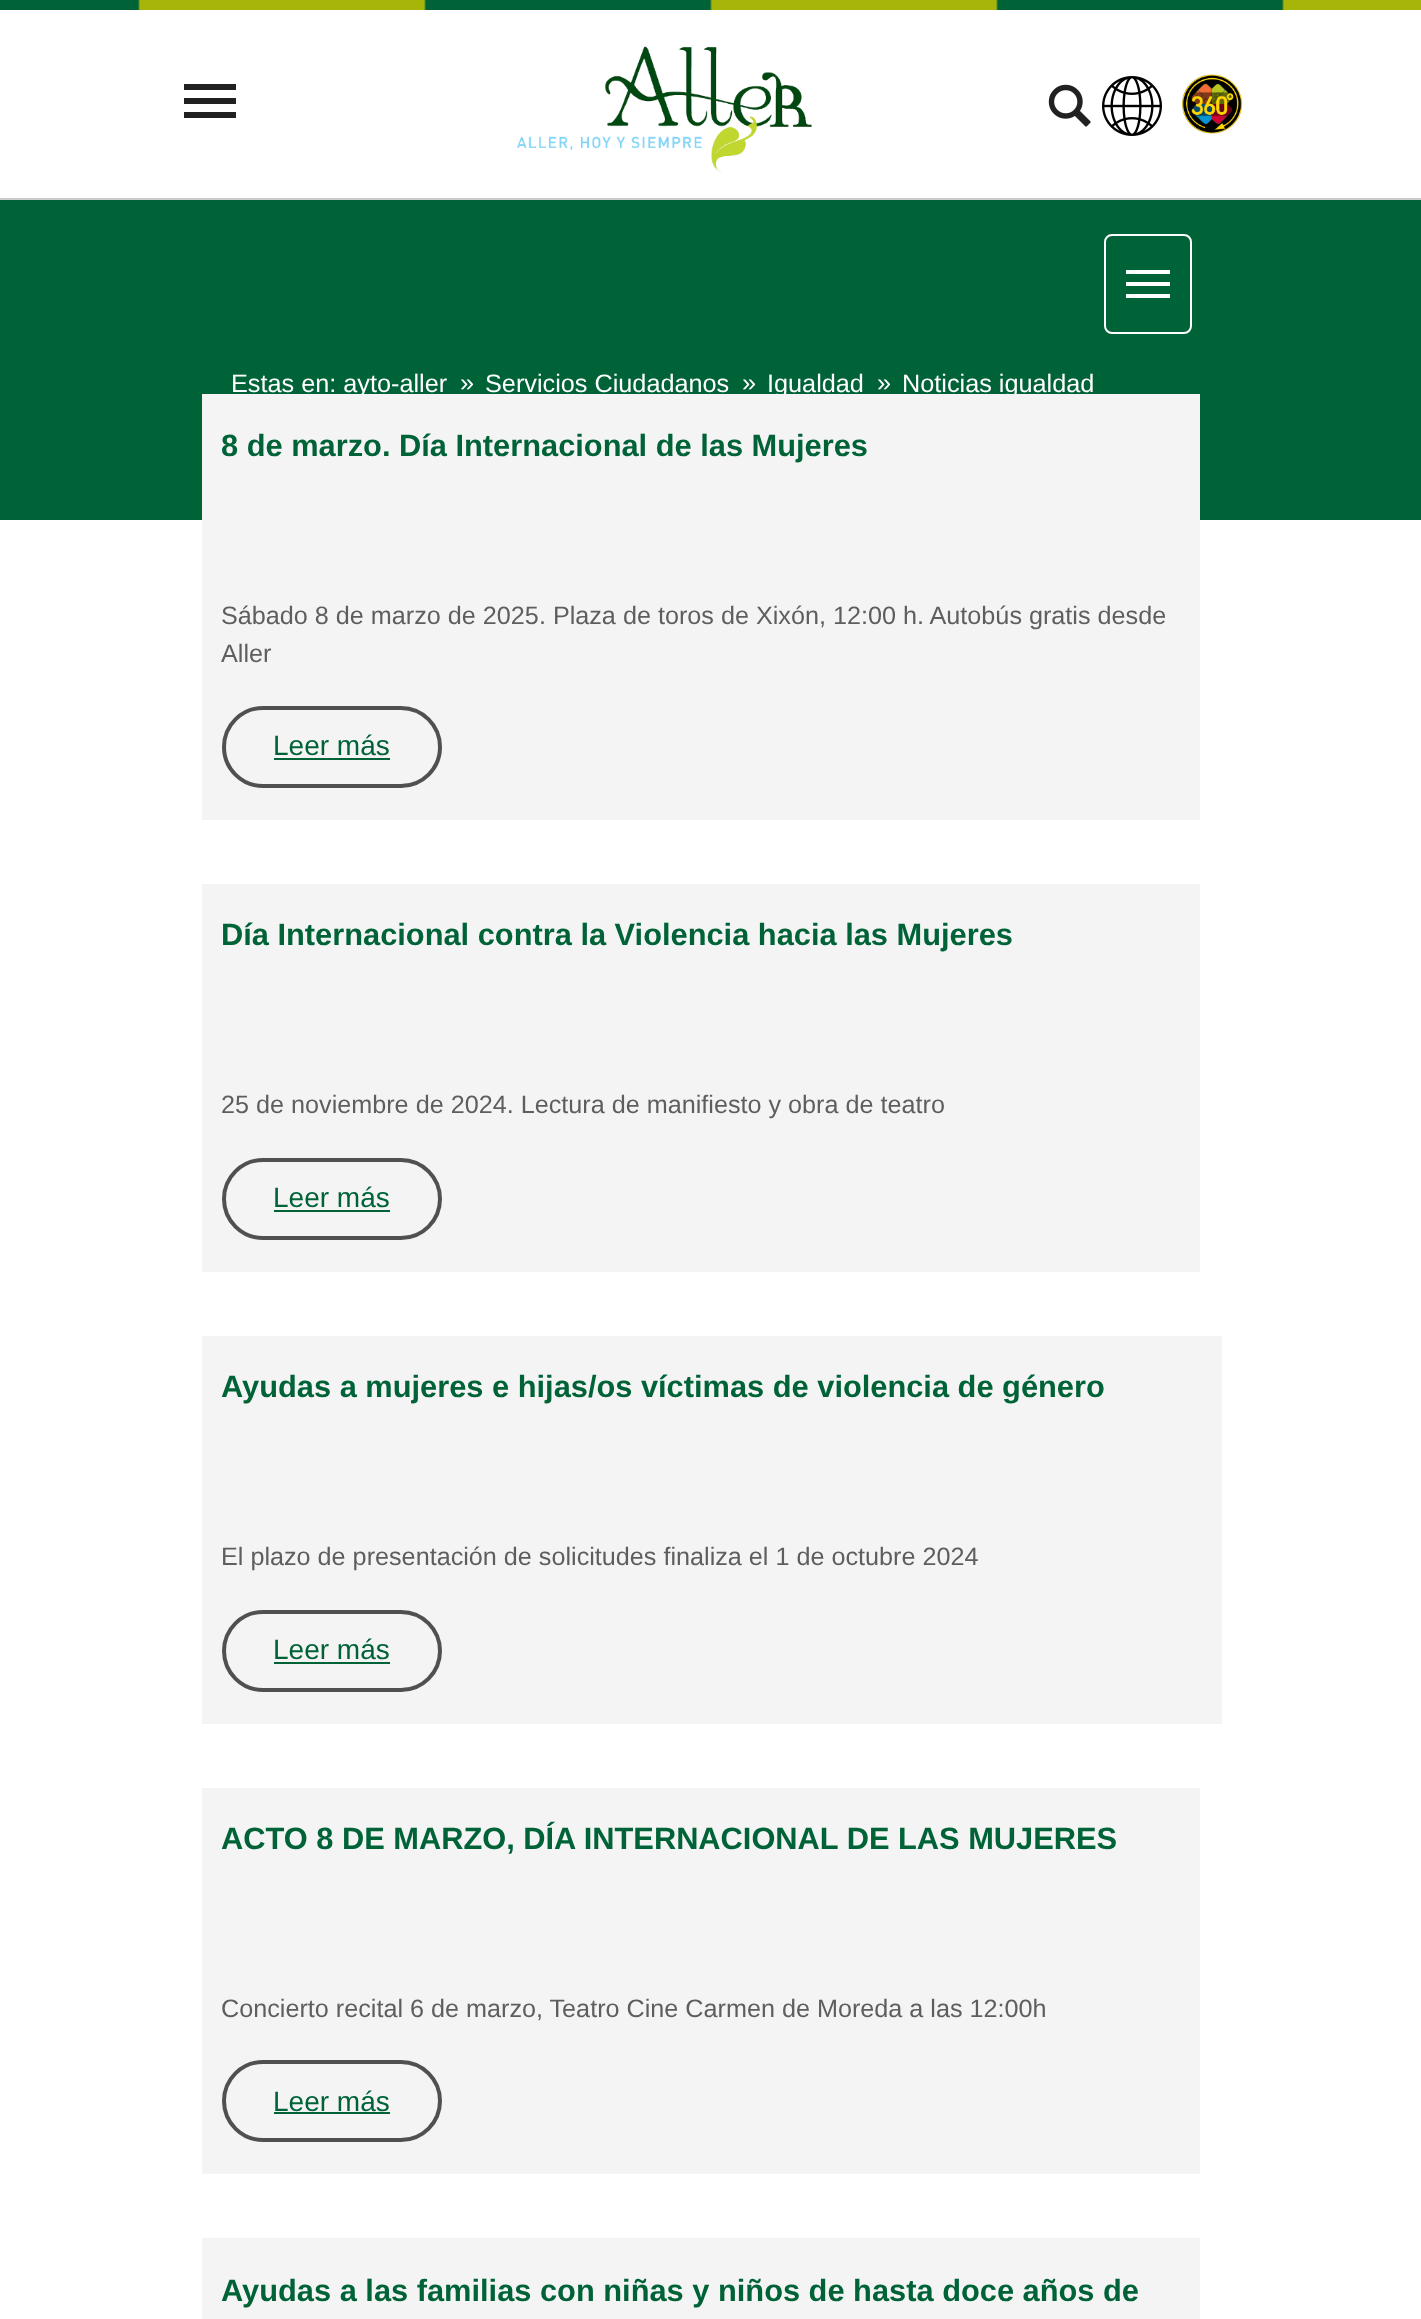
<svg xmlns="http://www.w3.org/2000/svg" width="1421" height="2319">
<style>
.a{font:25.25px Liberation Sans;fill:#fff}
.b{font:bold 30.8px Liberation Sans;fill:#006338}
.c{font:25.2px Liberation Sans;fill:#5e5e5e}
.d{font:28px Liberation Sans;fill:#006338}
</style>
<rect width="100%" height="100%" fill="#fff"/>
<image href="1.png" x="0" y="0" width="1421" height="10"/>
<path fill="#ccc" d="M0 198h1421v2H0z"/>
<path fill="#212121" d="M184 84h52v6H184z"/>
<path fill="#212121" d="M184 98h52v6H184z"/>
<path fill="#212121" d="M184 112h52v6H184z"/>
<image href="2.png" x="517" y="46" width="295" height="126"/>
<image href="3.png" x="1048" y="84" width="43" height="43"/>
<image href="4.png" x="1102" y="76" width="60" height="60"/>
<image href="5.png" x="1182" y="74" width="60" height="60"/>
<path fill="#006338" d="M0 200h1421v320H0z"/>
<rect fill="none" stroke="#fff" stroke-width="2" x="1105" y="235" width="86" height="98" rx="7"/>
<path fill="#fff" d="M1126 270h44v4H1126z"/>
<path fill="#fff" d="M1126 282h44v4H1126z"/>
<path fill="#fff" d="M1126 294h44v4H1126z"/>
<path fill="#f4f4f4" d="M202 884h998v388H202z"/>
<rect fill="none" stroke="#505050" stroke-width="4" x="224" y="1160" width="216" height="78" rx="39"/>
<path fill="#006338" d="M274 1210h116v2H274z"/>
<path fill="#f4f4f4" d="M202 1336h1020v388H202z"/>
<rect fill="none" stroke="#505050" stroke-width="4" x="224" y="1612" width="216" height="78" rx="39"/>
<path fill="#006338" d="M274 1662h116v2H274z"/>
<path fill="#f4f4f4" d="M202 1788h998v386H202z"/>
<rect fill="none" stroke="#505050" stroke-width="4" x="224" y="2062" width="216" height="78" rx="39"/>
<path fill="#006338" d="M274 2112h116v2H274z"/>
<path fill="#f4f4f4" d="M202 2238h998v81H202z"/>
<text class="a" x="231" y="392">Estas en: ayto-aller</text>
<text class="a" x="460" y="391">»</text>
<text class="a" x="485" y="392">Servicios Ciudadanos</text>
<text class="a" x="742" y="391">»</text>
<text class="a" x="767" y="392">Igualdad</text>
<text class="a" x="877" y="391">»</text>
<text class="a" x="902" y="392">Noticias igualdad</text>
<path fill="#f4f4f4" d="M202 394h998v426H202z"/>
<text class="b" x="221" y="456">8 de marzo. Día Internacional de las Mujeres</text>
<text class="c" x="221" y="624">Sábado 8 de marzo de 2025. Plaza de toros de Xixón, 12:00 h. Autobús gratis desde</text>
<text class="c" x="221" y="662">Aller</text>
<rect fill="none" stroke="#505050" stroke-width="4" x="224" y="708" width="216" height="78" rx="39"/>
<text class="d" x="273" y="755">Leer más</text>
<path fill="#006338" d="M274 758h116v2H274z"/>
<text class="b" x="221" y="945">Día Internacional contra la Violencia hacia las Mujeres</text>
<text class="c" x="221" y="1113">25 de noviembre de 2024. Lectura de manifiesto y obra de teatro</text>
<text class="d" x="273" y="1207">Leer más</text>
<text class="b" x="221" y="1397">Ayudas a mujeres e hijas/os víctimas de violencia de género</text>
<text class="c" x="221" y="1565">El plazo de presentación de solicitudes finaliza el 1 de octubre 2024</text>
<text class="d" x="273" y="1659">Leer más</text>
<text class="b" x="221" y="1849">ACTO 8 DE MARZO, DÍA INTERNACIONAL DE LAS MUJERES</text>
<text class="c" x="221" y="2017">Concierto recital 6 de marzo, Teatro Cine Carmen de Moreda a las 12:00h</text>
<text class="d" x="273" y="2111">Leer más</text>
<text class="b" x="221" y="2301">Ayudas a las familias con niñas y niños de hasta doce años de</text>
</svg>
